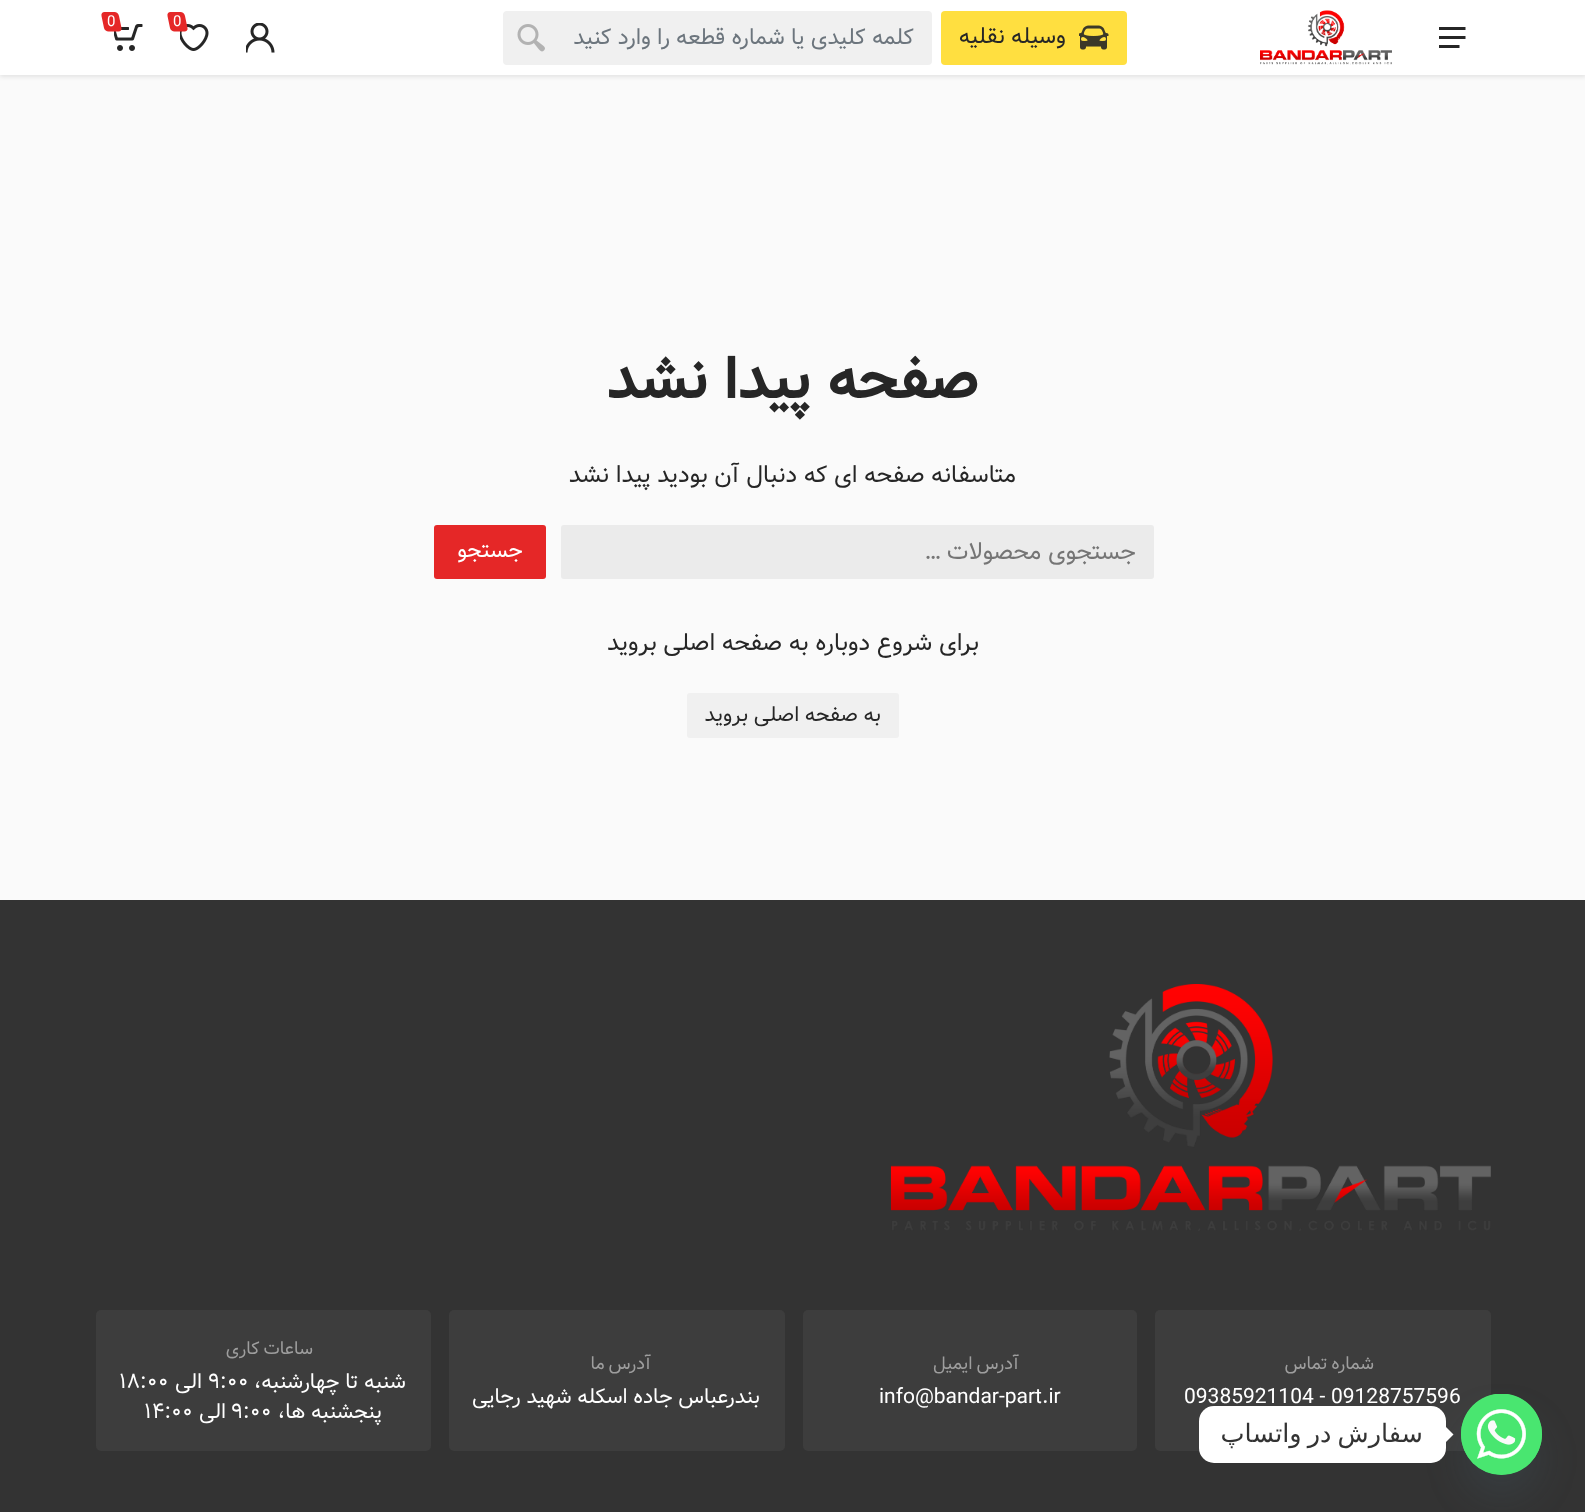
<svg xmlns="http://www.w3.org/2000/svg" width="1585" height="1512">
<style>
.a{font:15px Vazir;fill:#fff}
.b{font:22.5px Vazir;direction:rtl;fill:#262626}
.c{font:22.5px Vazir;direction:rtl;fill:#6c757d}
.d{font:bold 60px Vazir;direction:rtl;fill:#262626}
.e{font:24px Vazir;direction:rtl;fill:#262626}
.f{font:24px Vazir;direction:rtl;fill:#757575}
.g{font:22.5px Vazir;direction:rtl;fill:#fff}
.h{font:21px Vazir;direction:rtl;fill:#262626}
.i{font:18px Vazir;letter-spacing:0.75px;direction:rtl;fill:#9e9e9e}
.j{font:21px Vazir;fill:#fff}
.k{font:21px Vazir;direction:rtl;fill:#fff}
.l{font:25.5px DejaVu Sans;direction:rtl;fill:#333}
</style>
<rect width="100%" height="100%" fill="#fafafa"/>
<path fill="#00000017" filter="blur(2px)" d="M0 2h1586v75H0z"/>
<path fill="#fff" d="M0 0h1585v75H0z"/>
<image href="1.png" x="1260" y="10" width="132" height="55"/>
<image href="2.png" x="180" y="24" width="29" height="27"/>
<path fill="#e52727" d="M170.5 12h10c2 0 4 1.5 4.5 4l2.5 12c.5 2-1 3.5-3 3.5h-10c-2 0-4-1.5-4.5-3.5l-2.5-12c-.5-2.5 1-4 3-4z"/>
<image href="3.png" x="114" y="24" width="29" height="27"/>
<path fill="#e52727" d="M104.5 12h10c2 0 4 1.5 4.5 4l2.5 12c.5 2-1 3.5-3 3.5h-10c-2 0-4-1.5-4.5-3.5l-2.5-12c-.5-2.5 1-4 3-4z"/>
<image href="4.png" x="246" y="23" width="29" height="30"/>
<image href="5.png" x="1439" y="27" width="27" height="21"/>
<rect fill="#ffdf40" x="941" y="11" width="186" height="54" rx="4"/>
<image href="6.png" x="1079" y="25" width="30" height="25"/>
<rect fill="#f0f0f0" stroke="#f0f0f0" stroke-width="2" x="504" y="12" width="427" height="52" rx="3"/>
<image href="7.png" x="517" y="24" width="28" height="28"/>
<rect fill="#ebebeb" stroke="#ebebeb" stroke-width="2" x="562" y="526" width="591" height="52" rx="2"/>
<rect fill="#e52727" x="434" y="525" width="112" height="54" rx="3"/>
<rect fill="#f0f0f0" x="687" y="693" width="212" height="45" rx="3"/>
<path fill="#333" d="M0 900h1585v612H0z"/>
<image href="8.png" x="890" y="984" width="601" height="247"/>
<rect fill="#3d3d3d" x="1155" y="1310" width="336" height="141" rx="5"/>
<rect fill="#3d3d3d" x="803" y="1310" width="334" height="141" rx="5"/>
<rect fill="#3d3d3d" x="449" y="1310" width="336" height="141" rx="5"/>
<rect fill="#3d3d3d" x="96" y="1310" width="335" height="141" rx="5"/>
<rect fill="#49687e29" filter="blur(18px)" x="1461" y="1418" width="81" height="81" rx="40.5"/>
<circle fill="#49e670" cx="1501.5" cy="1434.5" r="40.5"/>
<image href="9.png" x="1461" y="1394" width="81" height="81"/>
<rect fill="#fff" x="1199" y="1406" width="247" height="57" rx="15"/>
<path fill="#fff" d="M1446 1442v-15l7.5 7.5z"/>
<text class="a" x="173" y="26">0</text>
<text class="a" x="107" y="26">0</text>
<text class="b" x="1066" y="43">وسیله نقلیه</text>
<text class="c" x="914" y="44">کلمه کلیدی یا شماره قطعه را وارد کنید</text>
<text class="d" x="979" y="398">صفحه پیدا نشد</text>
<text class="e" x="1016" y="482">متاسفانه صفحه ای که دنبال آن بودید پیدا نشد</text>
<text class="f" x="1136" y="559">جستجوی محصولات …</text>
<text class="g" x="523" y="557">جستجو</text>
<text class="e" x="979" y="650">برای شروع دوباره به صفحه اصلی بروید</text>
<text class="h" x="881" y="721">به صفحه اصلی بروید</text>
<text class="i" x="1374" y="1369" word-spacing="-1">شماره تماس</text>
<text class="j" x="1184" y="1403">09385921104 - 09128757596</text>
<text class="i" x="1019" y="1369" word-spacing="-1">آدرس ایمیل</text>
<text class="j" x="879" y="1403">info@bandar-part.ir</text>
<text class="i" x="651" y="1369" word-spacing="-1">آدرس ما</text>
<text class="k" x="760" y="1403">بندرعباس جاده اسکله شهید رجایی</text>
<text class="i" x="313" y="1354" word-spacing="-1">ساعات کاری</text>
<text class="k" x="406" y="1388">شنبه تا چهارشنبه،</text>
<text class="j" x="208" y="1388">۹:۰۰</text>
<text class="k" x="202" y="1388">الی</text>
<text class="j" x="119" y="1388">۱۸:۰۰</text>
<text class="k" x="382" y="1418">پنجشنبه ها،</text>
<text class="j" x="231" y="1418">۹:۰۰</text>
<text class="k" x="226" y="1418">الی</text>
<text class="j" x="144" y="1418">۱۴:۰۰</text>
<text class="l" x="1423" y="1442" word-spacing="-2">سفارش در واتساپ</text>
</svg>
